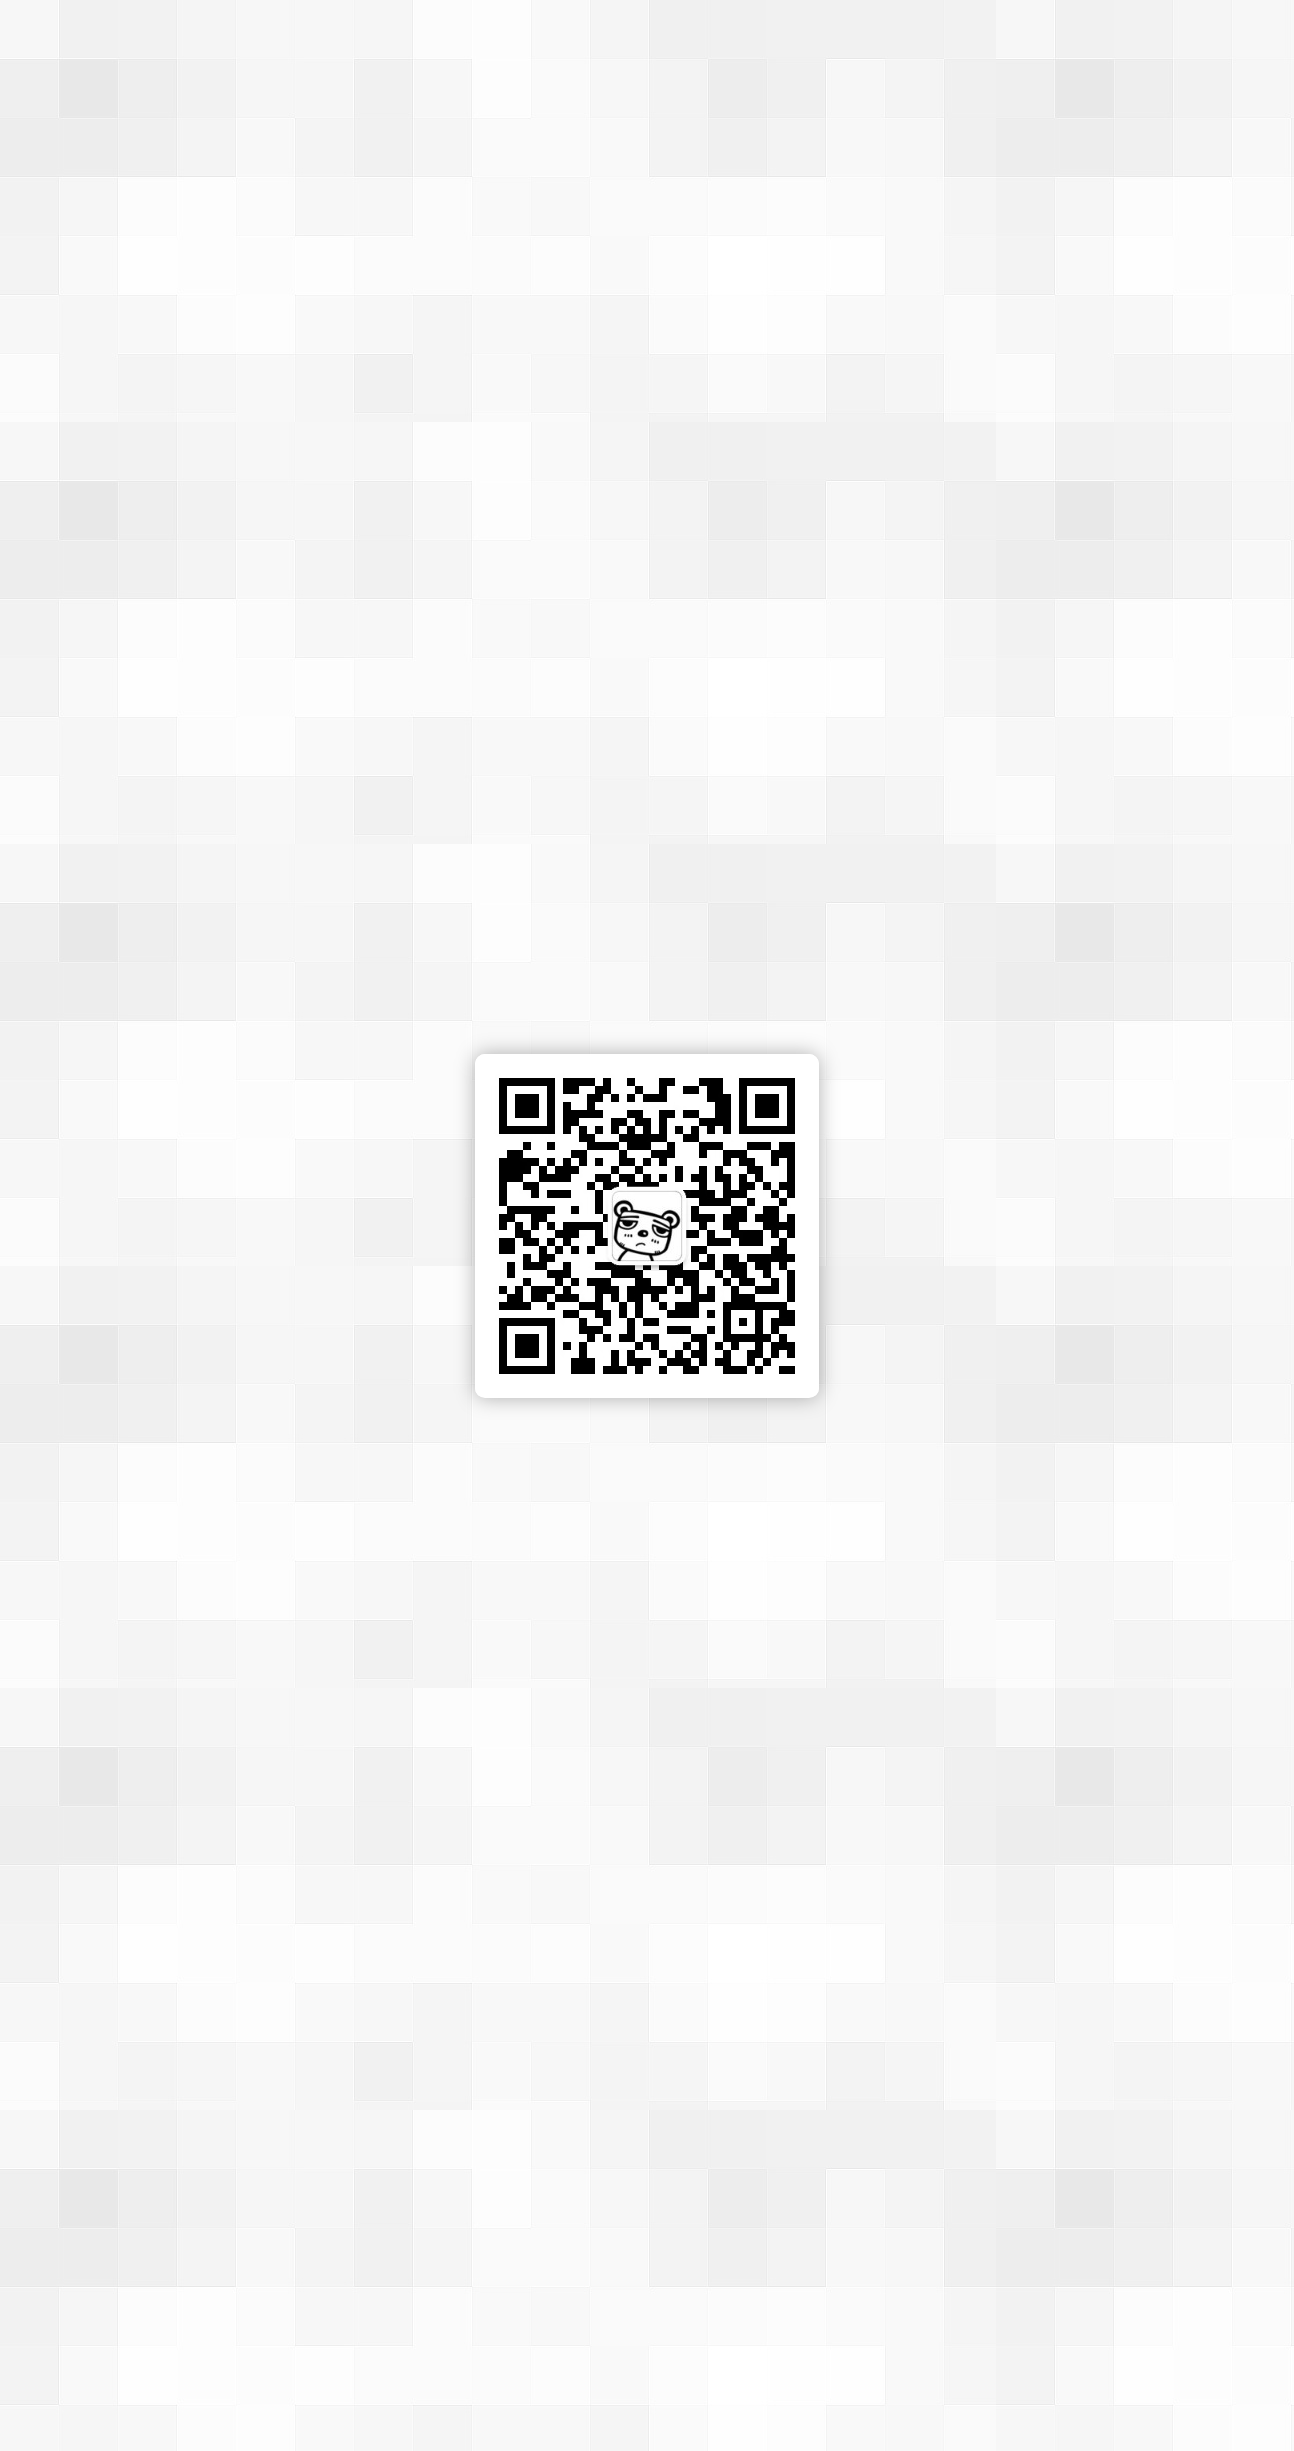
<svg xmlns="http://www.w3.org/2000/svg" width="1294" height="2451">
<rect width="100%" height="100%" fill="#fff"/>
<image href="1.png" x="0" y="0" width="1294" height="2451"/>
<rect fill="#0000004d" filter="blur(10px)" x="475" y="1054" width="344" height="344" rx="10"/>
<rect fill="#fff" x="475" y="1054" width="344" height="344" rx="10"/>
<image href="2.png" x="475" y="1054" width="344" height="342"/>
</svg>
